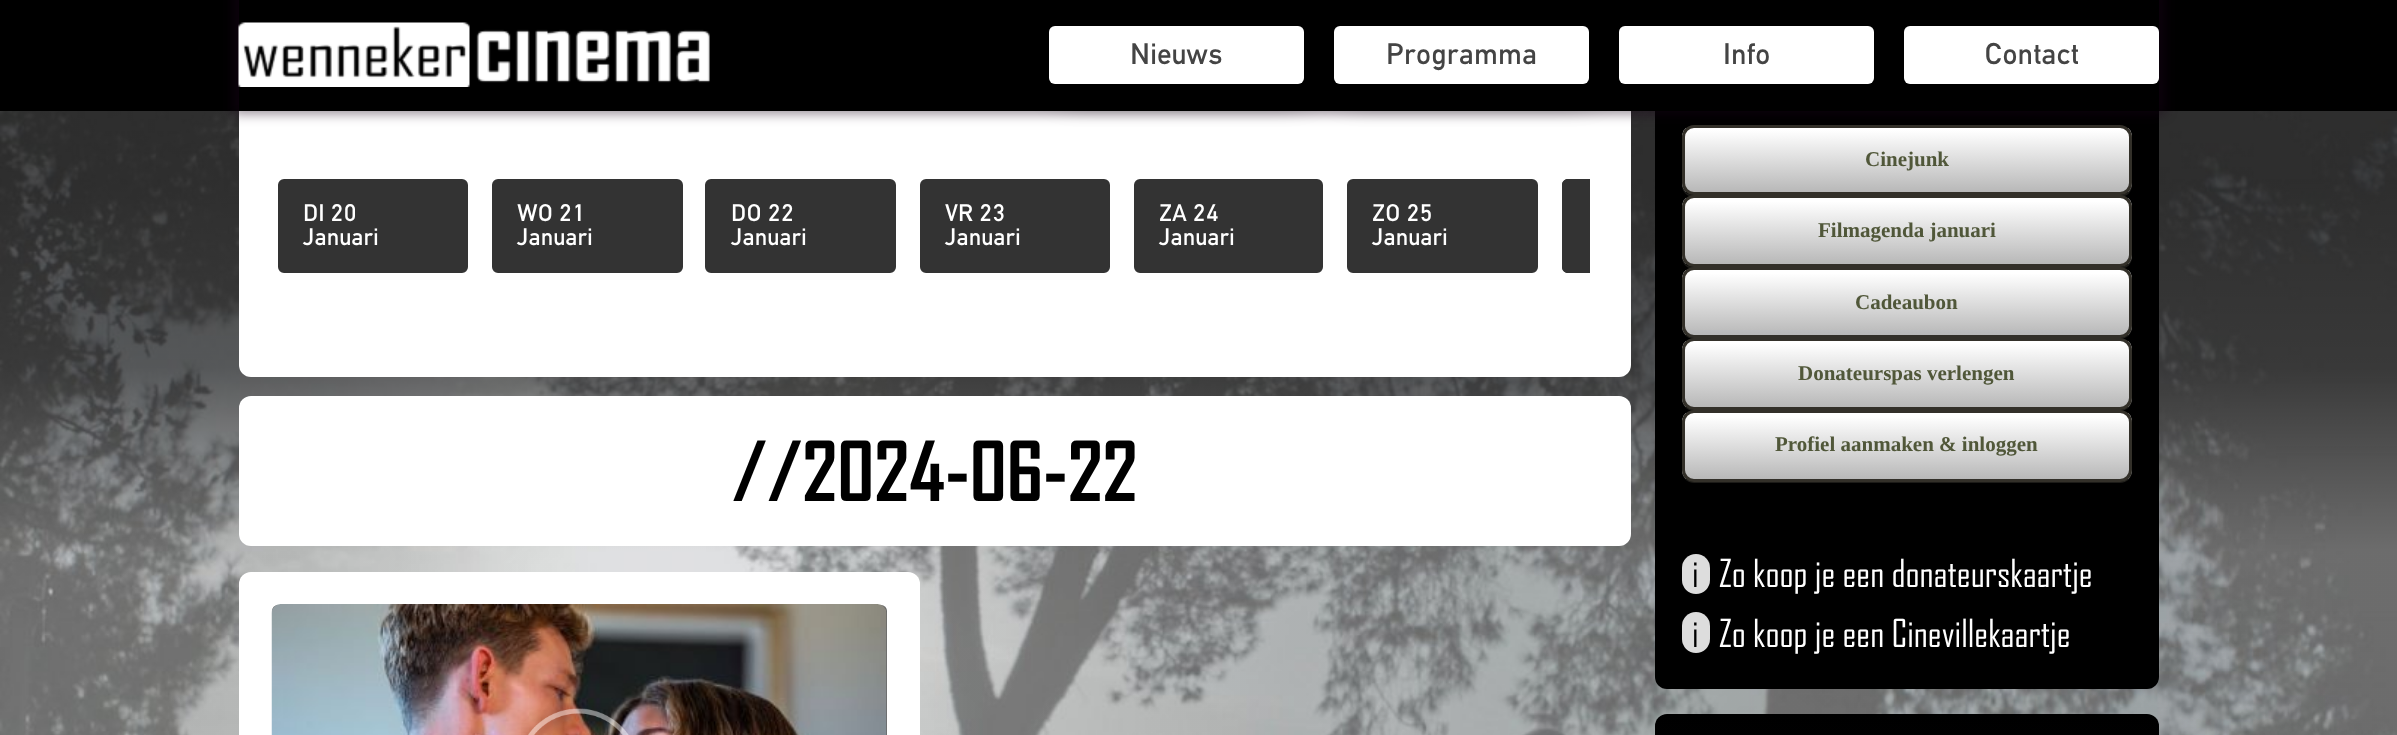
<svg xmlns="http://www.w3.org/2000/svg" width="2397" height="735">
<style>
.a{font:29.75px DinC;fill:#444}
.b{font:24px DinC;fill:#fff}
.c{font:bold 79.25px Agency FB;fill:#000}
.d{font:bold 21px Liberation Serif;fill:#505739}
.e{font:37.1px Agency FB;fill:#000}
.f{font:37.1px Agency FB;fill:#fff}
</style>
<defs>
<clipPath id="clip1"><rect x="1682" y="125" width="450" height="70" rx="12"/></clipPath>
<linearGradient id="g1" gradientUnits="userSpaceOnUse" x1="1907" y1="127" x2="1907" y2="192"><stop offset="0.05" stop-color="#fff"/><stop offset="1" stop-color="#b8b8b8"/></linearGradient>
<clipPath id="clip2"><rect x="1682" y="195" width="450" height="72" rx="12"/></clipPath>
<linearGradient id="g2" gradientUnits="userSpaceOnUse" x1="1907" y1="198" x2="1907" y2="264"><stop offset="0.05" stop-color="#fff"/><stop offset="1" stop-color="#b8b8b8"/></linearGradient>
<clipPath id="clip3"><rect x="1682" y="267" width="450" height="71" rx="12"/></clipPath>
<linearGradient id="g3" gradientUnits="userSpaceOnUse" x1="1907" y1="270" x2="1907" y2="335"><stop offset="0.05" stop-color="#fff"/><stop offset="1" stop-color="#b8b8b8"/></linearGradient>
<clipPath id="clip4"><rect x="1682" y="338" width="450" height="72" rx="12"/></clipPath>
<linearGradient id="g4" gradientUnits="userSpaceOnUse" x1="1907" y1="340" x2="1907" y2="407"><stop offset="0.05" stop-color="#fff"/><stop offset="1" stop-color="#b8b8b8"/></linearGradient>
<clipPath id="clip5"><rect x="1682" y="410" width="450" height="72" rx="12"/></clipPath>
<linearGradient id="g5" gradientUnits="userSpaceOnUse" x1="1907" y1="413" x2="1907" y2="479"><stop offset="0.05" stop-color="#fff"/><stop offset="1" stop-color="#b8b8b8"/></linearGradient>
<linearGradient id="g6" gradientUnits="userSpaceOnUse" x1="1907" y1="714" x2="1907" y2="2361"><stop offset="0" stop-color="#000"/><stop offset="1" stop-color="#2d2e31"/></linearGradient>
</defs>
<rect width="100%" height="100%" fill="#fff"/>
<image href="1.png" x="0" y="111" width="2397" height="624"/>
<path fill="#000" d="M0 0h2397v111H0z"/>
<rect fill="#fff" x="239" y="99" width="1392" height="278" rx="12"/>
<rect fill="#000" x="1655" y="98" width="504" height="591" rx="12"/>
<path fill="#1c1b18" d="M1682 187c1 6 6 10 12 10h426c7 0 12-5 12-12v-47l-1-5l1 3v47c0 7-6 12-12 12h-426c-6 0-10-3-12-8z"/>
<g clip-path="url(#clip1)">
<path fill="url(#g1)" d="M1682 128h450v64H1682z"/>
</g>
<rect fill="none" stroke="#333029" stroke-width="3" x="1683.5" y="126.5" width="447" height="67" rx="10.5"/>
<path fill="#1a031a73" filter="blur(6px)" d="M233 -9h1932v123H233z"/>
<path fill="#000" d="M239 0h1920v111H239z"/>
<image href="2.png" x="238" y="22" width="472" height="65"/>
<path fill="#000000e6" filter="blur(16px)" d="M1064 48h237v41H1064z"/>
<rect fill="#fff" x="1049" y="26" width="255" height="58" rx="6"/>
<path fill="#000000e6" filter="blur(16px)" d="M1349 48h237v41H1349z"/>
<rect fill="#fff" x="1334" y="26" width="255" height="58" rx="6"/>
<rect fill="#fff" x="1619" y="26" width="255" height="58" rx="6"/>
<rect fill="#fff" x="1904" y="26" width="255" height="58" rx="6"/>
<rect fill="#333" stroke="#333" stroke-width="2" x="279" y="180" width="188" height="92" rx="5"/>
<rect fill="#333" stroke="#333" stroke-width="2" x="493" y="180" width="189" height="92" rx="5"/>
<rect fill="#333" stroke="#333" stroke-width="2" x="706" y="180" width="189" height="92" rx="5"/>
<rect fill="#333" stroke="#333" stroke-width="2" x="921" y="180" width="188" height="92" rx="5"/>
<rect fill="#333" stroke="#333" stroke-width="2" x="1135" y="180" width="187" height="92" rx="5"/>
<rect fill="#333" stroke="#333" stroke-width="2" x="1348" y="180" width="189" height="92" rx="5"/>
<path fill="#333" d="M1568 179h22v94h-22c-3.5 0-6-2.5-6-6v-82c0-3.5 2.5-6 6-6z"/>
<path fill="#333" d="M1568 179c-3 0-6 3-6 6v82c0 3 3 6 6 6h22v-2h-22c-2 0-4-2-4-4v-82c0-2 2-4 4-4h22v-2z"/>
<rect fill="#fff" x="239" y="396" width="1392" height="150" rx="12"/>
<rect fill="#fff" x="239" y="572" width="681" height="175" rx="12"/>
<rect fill="#666" x="272" y="605" width="615" height="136" rx="6"/>
<image href="3.png" x="271" y="604" width="616" height="131"/>
<image href="4.png" x="521" y="703" width="115" height="32"/>
<path fill="#1c1b18" d="M1682 259c1 6 6 10 12 10h426c7 0 12-5 12-12v-48l-1-4l1 50c0 7-6 12-12 12h-426c-6 0-10-3-12-8z"/>
<g clip-path="url(#clip2)">
<path fill="url(#g2)" d="M1682 198h450v66H1682z"/>
</g>
<rect fill="none" stroke="#333029" stroke-width="3" x="1683.5" y="196.5" width="447" height="69" rx="10.5"/>
<path fill="#1c1b18" d="M1682 330c2 5 6 9 12 9h426c7 0 12-5 12-12v-46l-1-4l1 49c0 6-6 12-12 12h-426c-6 0-10-4-12-8z"/>
<g clip-path="url(#clip3)">
<path fill="url(#g3)" d="M1682 270h450v65H1682z"/>
</g>
<rect fill="none" stroke="#333029" stroke-width="3" x="1683.5" y="268.5" width="447" height="68" rx="10.5"/>
<path fill="#1c1b18" d="M1682 402c2 5 6 9 12 9h426c7 0 12-5 12-12v-48l-1-5l1 4v48c0 6-6 12-12 12h-426c-6 0-10-4-12-8z"/>
<g clip-path="url(#clip4)">
<path fill="url(#g4)" d="M1682 341h450v66H1682z"/>
</g>
<rect fill="none" stroke="#333029" stroke-width="3" x="1683.5" y="339.5" width="447" height="69" rx="10.5"/>
<path fill="#1c1b18" d="M1682 474c2 5 6 9 12 9h426c7 0 12-5 12-12v-48l-1-5l1 4v48c0 6-6 12-12 12h-426c-6 0-10-4-12-8z"/>
<g clip-path="url(#clip5)">
<path fill="url(#g5)" d="M1682 413h450v66H1682z"/>
</g>
<rect fill="none" stroke="#333029" stroke-width="3" x="1683.5" y="411.5" width="447" height="69" rx="10.5"/>
<rect fill="#ddd" x="1682" y="554" width="28" height="40" rx="14"/>
<rect fill="#ddd" x="1682" y="612" width="28" height="41" rx="14"/>
<rect fill="url(#g6)" x="1655" y="714" width="504" height="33" rx="12"/>
<text class="a" x="1130" y="64">Nieuws</text>
<text class="a" x="1386" y="64">Programma</text>
<text class="a" x="1723" y="64">Info</text>
<text class="a" x="1984" y="64">Contact</text>
<text class="b" x="303" y="221">DI 20</text>
<text class="b" x="303" y="245">Januari</text>
<text class="b" x="517" y="221">WO 21</text>
<text class="b" x="517" y="245">Januari</text>
<text class="b" x="731" y="221">DO 22</text>
<text class="b" x="731" y="245">Januari</text>
<text class="b" x="945" y="221">VR 23</text>
<text class="b" x="945" y="245">Januari</text>
<text class="b" x="1159" y="221">ZA 24</text>
<text class="b" x="1159" y="245">Januari</text>
<text class="b" x="1372" y="221">ZO 25</text>
<text class="b" x="1372" y="245">Januari</text>
<text class="c" x="732" y="501">//2024-06-22</text>
<text class="d" x="1865" y="166">Cinejunk</text>
<text class="d" x="1818" y="237">Filmagenda januari</text>
<text class="d" x="1855" y="309">Cadeaubon</text>
<text class="d" x="1798" y="380">Donateurspas verlengen</text>
<text class="d" x="1775" y="451">Profiel aanmaken &amp; inloggen</text>
<text class="e" x="1692" y="587">i</text>
<text class="f" x="1719" y="587">Zo koop je een donateurskaartje</text>
<text class="e" x="1692" y="647">i</text>
<text class="f" x="1719" y="647">Zo koop je een Cinevillekaartje</text>
</svg>
